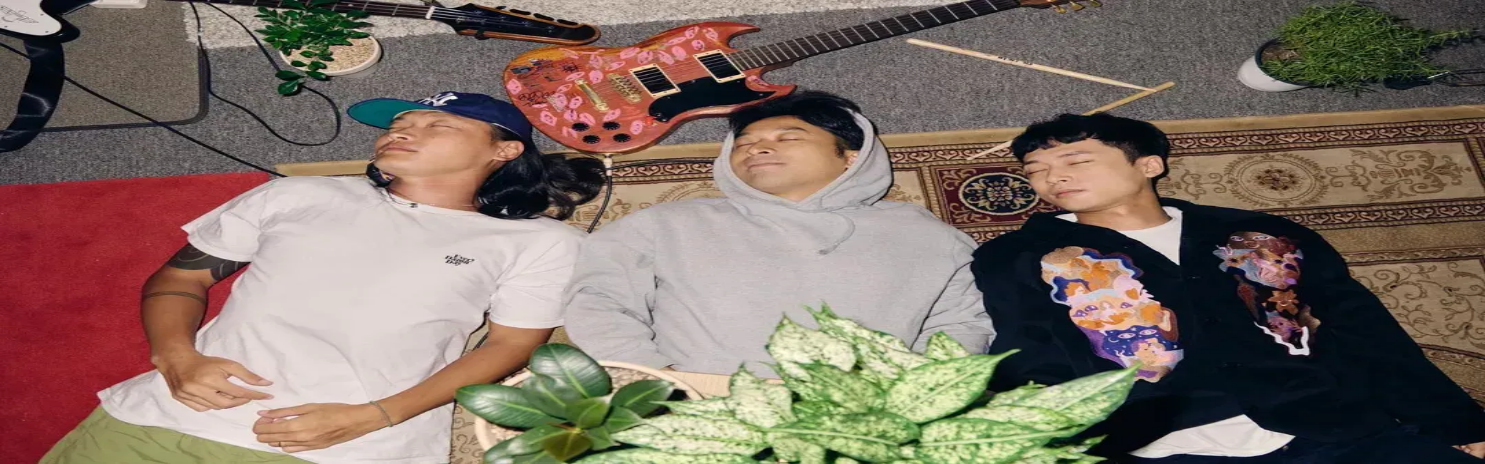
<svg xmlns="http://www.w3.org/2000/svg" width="1485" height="464">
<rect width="100%" height="100%" fill="#fff"/>
<image href="1.png" x="0" y="0" width="1485" height="464"/>
</svg>
